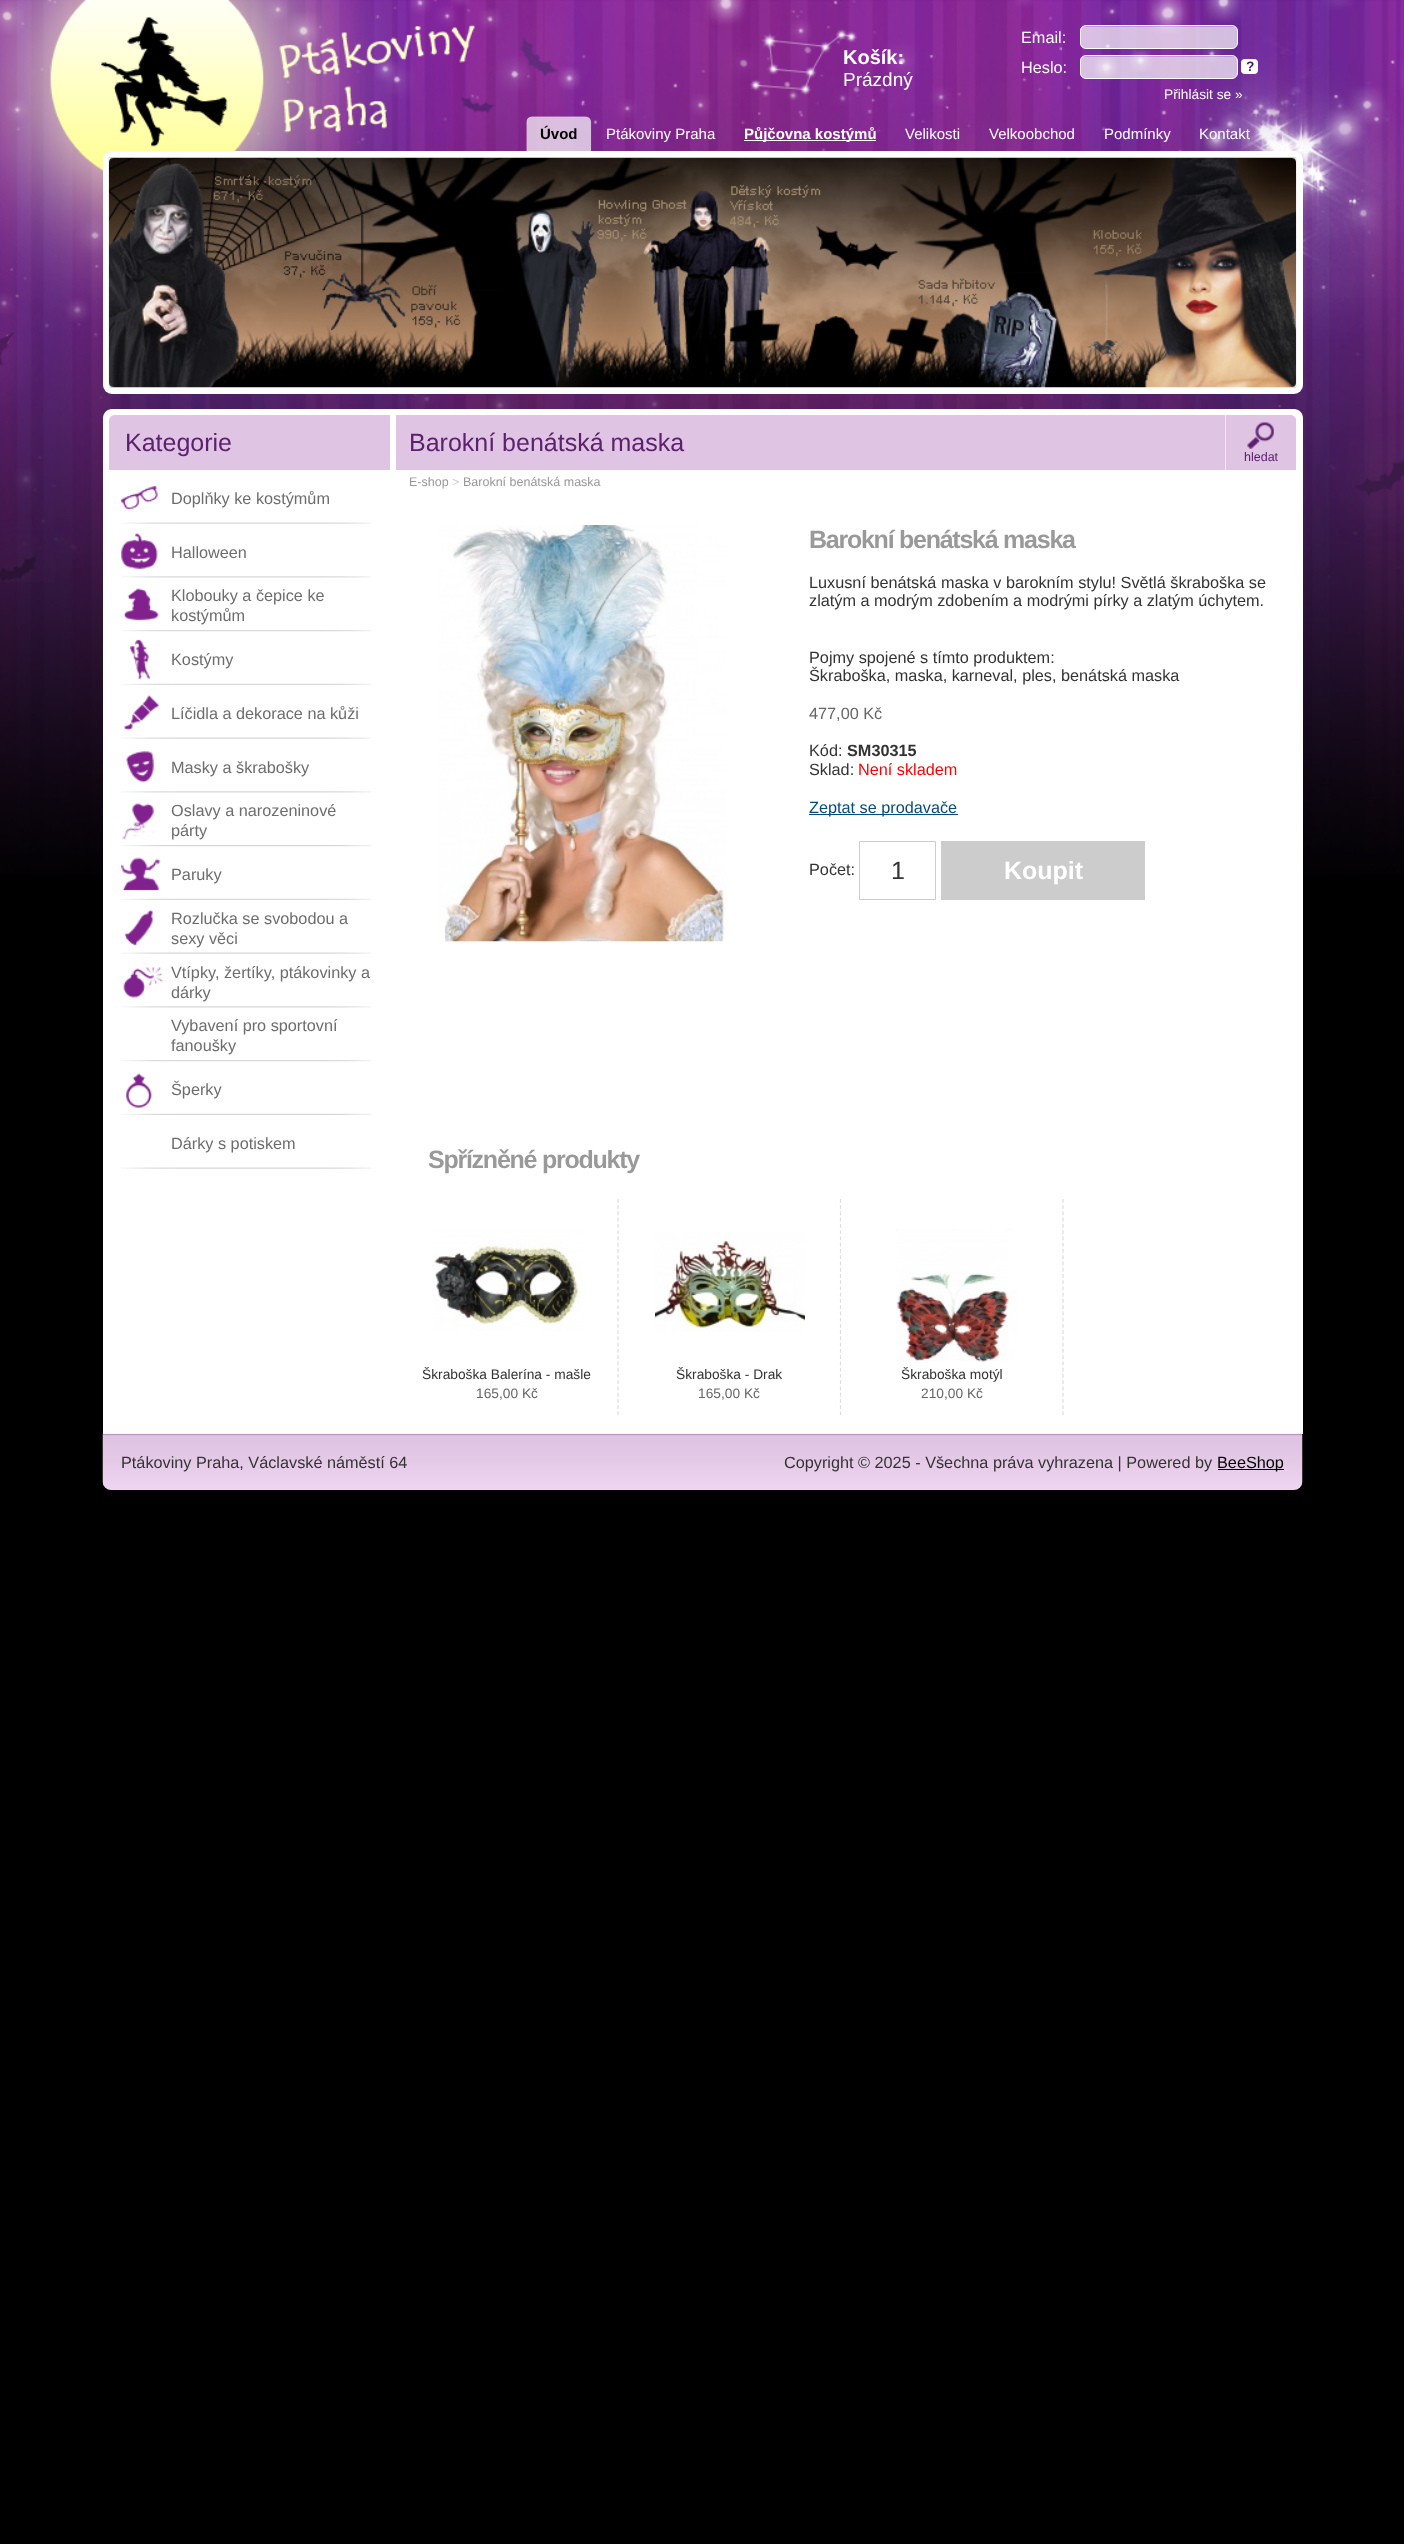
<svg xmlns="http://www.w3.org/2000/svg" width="1404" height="2544">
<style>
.a{font:bold 20px Liberation Sans;fill:#fff}
.b{font:19px Liberation Sans;fill:#fff}
.c{font:16.25px Liberation Sans;fill:#fff}
.d{font:bold 13.75px Liberation Sans;fill:#451958}
.e{font:13.75px Liberation Sans;fill:#fff}
.f{font:bold 15px Liberation Sans;fill:#000}
.g{font:15px Liberation Sans;fill:#fff}
.h{font:bold 15px Liberation Sans;fill:#fff}
.i{font:25px Liberation Sans;fill:#5d206f}
.j{font:16.25px Liberation Sans;fill:#6d6d6d}
.k{font:12.5px Liberation Sans;fill:#5d206f}
.l{font:12.5px Liberation Sans;fill:#999}
.m{font:12.5px Liberation Sans;fill:#ccc}
.n{font:bold 25px Liberation Sans;letter-spacing:-1.25px;fill:#999}
.o{font:16.25px Liberation Sans;fill:#333}
.p{font:16.25px Liberation Sans;fill:#666}
.q{font:bold 16.25px Liberation Sans;fill:#333}
.r{font:16.25px Liberation Sans;fill:#f00}
.s{font:16.25px Liberation Sans;fill:#034e76}
.t{font:25px Liberation Sans;fill:#333}
.u{font:bold 25px Liberation Sans;fill:#fff}
.v{font:13.75px Liberation Sans;fill:#333}
.w{font:13.75px Liberation Sans;fill:#666}
.x{font:16.25px Liberation Sans;fill:#000}
</style>
<rect width="100%" height="100%" fill="#000"/>
<image href="1.png" x="0" y="0" width="1404" height="876"/>
<image href="2.png" x="0" y="0" width="1404" height="582"/>
<image href="3.png" x="101" y="17" width="127" height="130"/>
<image href="4.png" x="749" y="29" width="109" height="72"/>
<image href="5.png" x="1080" y="26" width="158" height="23"/>
<rect fill="none" stroke="#fff" x="1080.5" y="25.5" width="157" height="23" rx="5.5"/>
<image href="6.png" x="1080" y="56" width="158" height="23"/>
<rect fill="none" stroke="#fff" x="1080.5" y="55.5" width="157" height="23" rx="5.5"/>
<rect fill="#fff" x="1241" y="59" width="17" height="15" rx="4"/>
<image href="7.png" x="526" y="116" width="66" height="35"/>
<path fill="#fff" d="M744 140h132v1H744z"/>
<rect fill="#fff" x="103" y="151" width="1200" height="243" rx="9"/>
<image href="8.png" x="108" y="157" width="1189" height="231"/>
<image href="9.png" x="108" y="157" width="6" height="231"/>
<image href="10.png" x="1291" y="157" width="6" height="231"/>
<path fill="#fff" d="M112 409h1182c5 0 9 4 9 9v1016h-1200v-1016c0-5 4-9 9-9z"/>
<path fill="#e0c4e3" d="M115 415h275v55h-281v-49c0-3.5 2.5-6 6-6z"/>
<image href="11.png" x="121" y="485" width="37" height="26"/>
<image href="12.png" x="121" y="522" width="250" height="2"/>
<image href="13.png" x="121" y="533" width="37" height="36"/>
<image href="14.png" x="121" y="576" width="250" height="2"/>
<image href="15.png" x="123" y="588" width="36" height="33"/>
<image href="16.png" x="121" y="630" width="250" height="2"/>
<image href="17.png" x="129" y="639" width="22" height="40"/>
<image href="18.png" x="121" y="683" width="250" height="2"/>
<image href="19.png" x="123" y="695" width="36" height="36"/>
<image href="12.png" x="121" y="737" width="250" height="2"/>
<image href="20.png" x="126" y="750" width="29" height="33"/>
<image href="14.png" x="121" y="791" width="250" height="2"/>
<image href="21.png" x="122" y="802" width="33" height="38"/>
<image href="16.png" x="121" y="845" width="250" height="2"/>
<image href="22.png" x="121" y="857" width="40" height="34"/>
<image href="18.png" x="121" y="898" width="250" height="2"/>
<image href="23.png" x="124" y="910" width="29" height="36"/>
<image href="12.png" x="121" y="952" width="250" height="2"/>
<image href="24.png" x="123" y="967" width="40" height="31"/>
<image href="14.png" x="121" y="1006" width="250" height="2"/>
<image href="16.png" x="121" y="1060" width="250" height="2"/>
<image href="25.png" x="126" y="1073" width="26" height="36"/>
<image href="18.png" x="121" y="1113" width="250" height="2"/>
<image href="12.png" x="121" y="1167" width="250" height="2"/>
<path fill="#e0c4e3" d="M396 415h894c3.5 0 6 2.5 6 6v49h-900z"/>
<path fill="#e0c4e3" d="M1225 415h65c3.5 0 6 2.5 6 6v49h-71z"/>
<image href="26.png" x="1247" y="422" width="27" height="27"/>
<path fill="#f3e8f4" d="M1225 415h1v55H1225z"/>
<image href="27.png" x="439" y="525" width="288" height="417"/>
<path fill="#034e76" d="M809 814h149v1H809z"/>
<path fill="none" stroke="#ccc" d="M859.5 841.5h76v58H859.5z"/>
<path fill="#ccc" d="M941 841h204v59H941z"/>
<path fill="none" stroke="#ddd" stroke-width="1.2" stroke-dasharray="3.75 2.5" d="M618 1199v216"/>
<image href="28.png" x="433" y="1231" width="150" height="100"/>
<path fill="none" stroke="#ddd" stroke-width="1.2" stroke-dasharray="3.75 2.5" d="M840.5 1199v216"/>
<image href="29.png" x="655" y="1232" width="150" height="100"/>
<path fill="none" stroke="#ddd" stroke-width="1.2" stroke-dasharray="3.75 2.5" d="M1063 1199v216"/>
<image href="30.png" x="896" y="1229" width="121" height="133"/>
<image href="31.png" x="102" y="1433" width="1201" height="57"/>
<path fill="#000" d="M1218 1469h66v1H1218z"/>
<text class="a" x="843" y="64">Košík:</text>
<text class="b" x="843" y="86">Prázdný</text>
<text class="c" x="1021" y="43">Email:</text>
<text class="c" x="1021" y="73">Heslo:</text>
<text class="d" x="1246" y="71">?</text>
<text class="e" x="1164" y="99">Přihlásit se »</text>
<text class="f" x="540" y="139">Úvod</text>
<text class="g" x="606" y="139">Ptákoviny Praha</text>
<text class="h" x="744" y="139">Půjčovna kostýmů</text>
<text class="g" x="905" y="139">Velikosti</text>
<text class="g" x="989" y="139">Velkoobchod</text>
<text class="g" x="1104" y="139">Podmínky</text>
<text class="g" x="1199" y="139">Kontakt</text>
<text class="i" x="125" y="451">Kategorie</text>
<text class="j" x="171" y="504">Doplňky ke kostýmům</text>
<text class="j" x="171" y="558">Halloween</text>
<text class="j" x="171" y="601">Klobouky a čepice ke</text>
<text class="j" x="171" y="621">kostýmům</text>
<text class="j" x="171" y="665">Kostýmy</text>
<text class="j" x="171" y="719">Líčidla a dekorace na kůži</text>
<text class="j" x="171" y="773">Masky a škrabošky</text>
<text class="j" x="171" y="816">Oslavy a narozeninové</text>
<text class="j" x="171" y="836">párty</text>
<text class="j" x="171" y="880">Paruky</text>
<text class="j" x="171" y="924">Rozlučka se svobodou a</text>
<text class="j" x="171" y="944">sexy věci</text>
<text class="j" x="171" y="978">Vtípky, žertíky, ptákovinky a</text>
<text class="j" x="171" y="998">dárky</text>
<text class="j" x="171" y="1031">Vybavení pro sportovní</text>
<text class="j" x="171" y="1051">fanoušky</text>
<text class="j" x="171" y="1095">Šperky</text>
<text class="j" x="171" y="1149">Dárky s potiskem</text>
<text class="i" x="409" y="451">Barokní benátská maska</text>
<text class="k" x="1244" y="461">hledat</text>
<text class="l" x="409" y="486">E-shop</text>
<text class="m" x="452" y="486">&gt;</text>
<text class="l" x="463" y="486">Barokní benátská maska</text>
<text class="n" x="809" y="548">Barokní benátská maska</text>
<text class="o" x="809" y="588">Luxusní benátská maska v barokním stylu! Světlá škraboška se</text>
<text class="o" x="809" y="606">zlatým a modrým zdobením a modrými pírky a zlatým úchytem.</text>
<text class="o" x="809" y="663">Pojmy spojené s tímto produktem:</text>
<text class="o" x="809" y="681">Škraboška, maska, karneval, ples, benátská maska</text>
<text class="p" x="809" y="719">477,00 Kč</text>
<text class="o" x="809" y="756">Kód:</text>
<text class="q" x="847" y="756">SM30315</text>
<text class="o" x="809" y="775">Sklad:</text>
<text class="r" x="858" y="775">Není skladem</text>
<text class="s" x="809" y="813">Zeptat se prodavače</text>
<text class="o" x="809" y="875">Počet:</text>
<text class="t" x="891" y="879">1</text>
<text class="u" x="1004" y="879">Koupit</text>
<text class="n" x="428" y="1168">Spřízněné produkty</text>
<text class="v" x="422" y="1379">Škraboška Balerína - mašle</text>
<text class="w" x="476" y="1398">165,00 Kč</text>
<text class="v" x="676" y="1379">Škraboška - Drak</text>
<text class="w" x="698" y="1398">165,00 Kč</text>
<text class="v" x="901" y="1379">Škraboška motýl</text>
<text class="w" x="921" y="1398">210,00 Kč</text>
<text class="o" x="121" y="1468">Ptákoviny Praha, Václavské náměstí 64</text>
<text class="o" x="784" y="1468">Copyright © 2025 - Všechna práva vyhrazena | Powered by</text>
<text class="x" x="1217" y="1468">BeeShop</text>
</svg>
